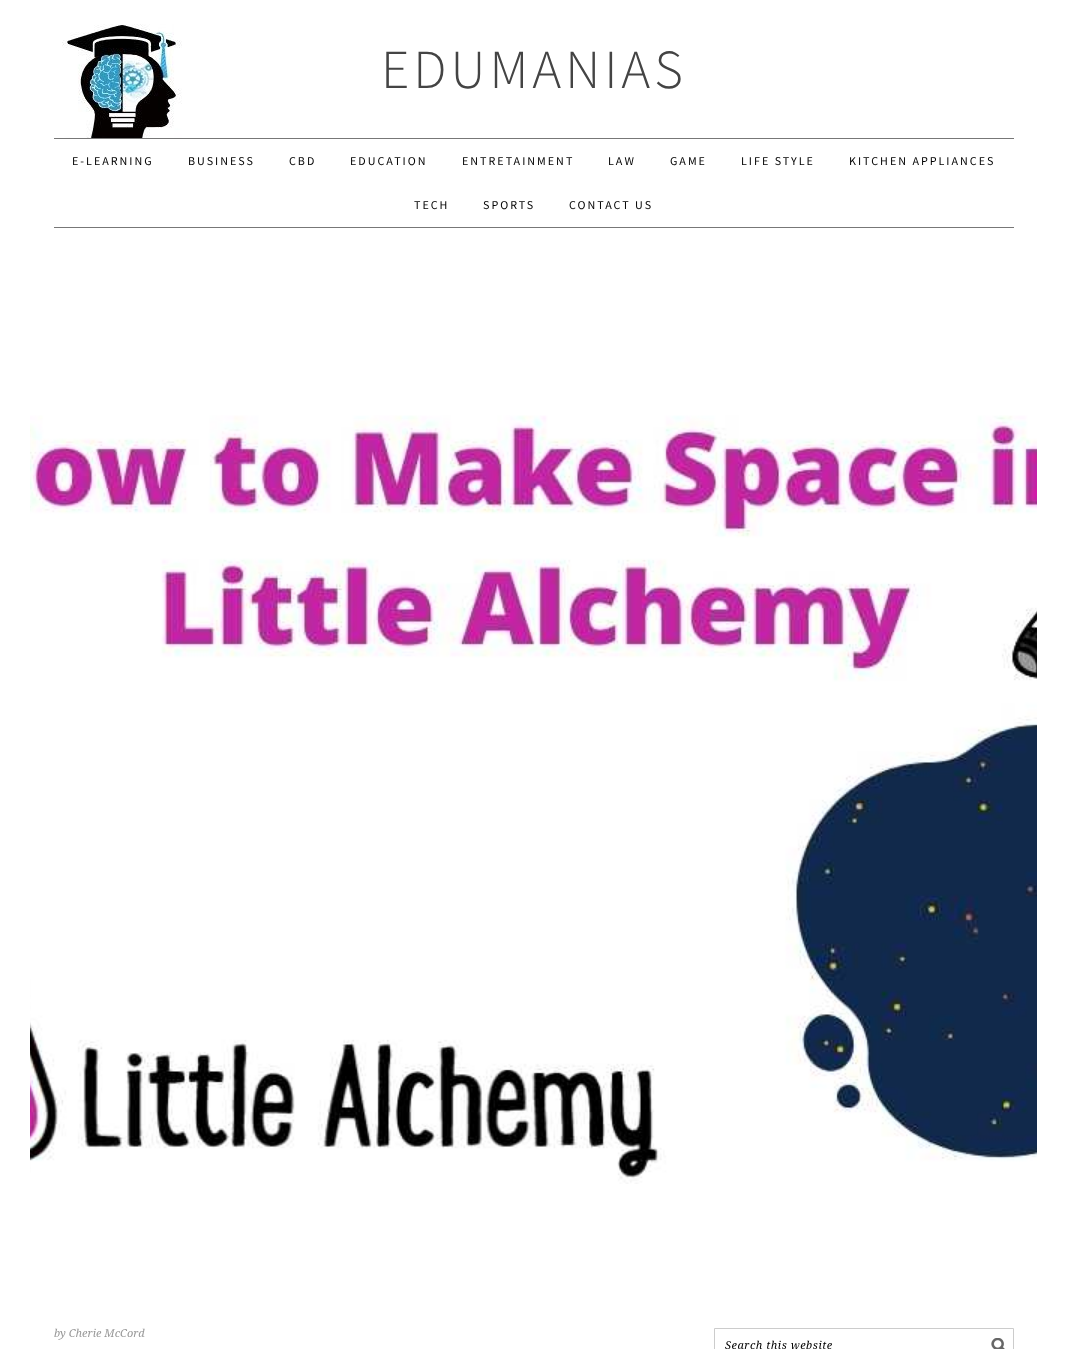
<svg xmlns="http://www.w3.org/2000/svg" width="1067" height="1349">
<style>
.a{font:300 55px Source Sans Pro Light;letter-spacing:4px;fill:#444}
.b{font:12px Source Sans Pro;letter-spacing:2px;fill:#000}
.c{font:italic 11px Droid Serif;fill:#999}
.d{font:italic 11px Droid Serif;letter-spacing:0.5px;fill:#000}
</style>
<rect width="100%" height="100%" fill="#fff"/>
<image href="1.png" x="62" y="24" width="120" height="114"/>
<path fill="#777" d="M54 138h960v1H54z"/>
<path fill="#777" d="M54 227h960v1H54z"/>
<image href="2.png" x="30" y="415" width="1007" height="769"/>
<image href="3.png" x="991" y="1338" width="14" height="11"/>
<path fill="none" stroke="#ccc" d="M714.5 1328.5h299v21H714.5z"/>
<text class="a" x="381" y="88">EDUMANIAS</text>
<text class="b" x="72" y="165">E-LEARNING</text>
<text class="b" x="188" y="165">BUSINESS</text>
<text class="b" x="289" y="165">CBD</text>
<text class="b" x="350" y="165">EDUCATION</text>
<text class="b" x="462" y="165">ENTRETAINMENT</text>
<text class="b" x="608" y="165">LAW</text>
<text class="b" x="670" y="165">GAME</text>
<text class="b" x="741" y="165">LIFE STYLE</text>
<text class="b" x="849" y="165">KITCHEN APPLIANCES</text>
<text class="b" x="414" y="209">TECH</text>
<text class="b" x="483" y="209">SPORTS</text>
<text class="b" x="569" y="209">CONTACT US</text>
<text class="c" x="54" y="1337">by Cherie McCord</text>
<text class="d" x="725" y="1349">Search this website</text>
</svg>
